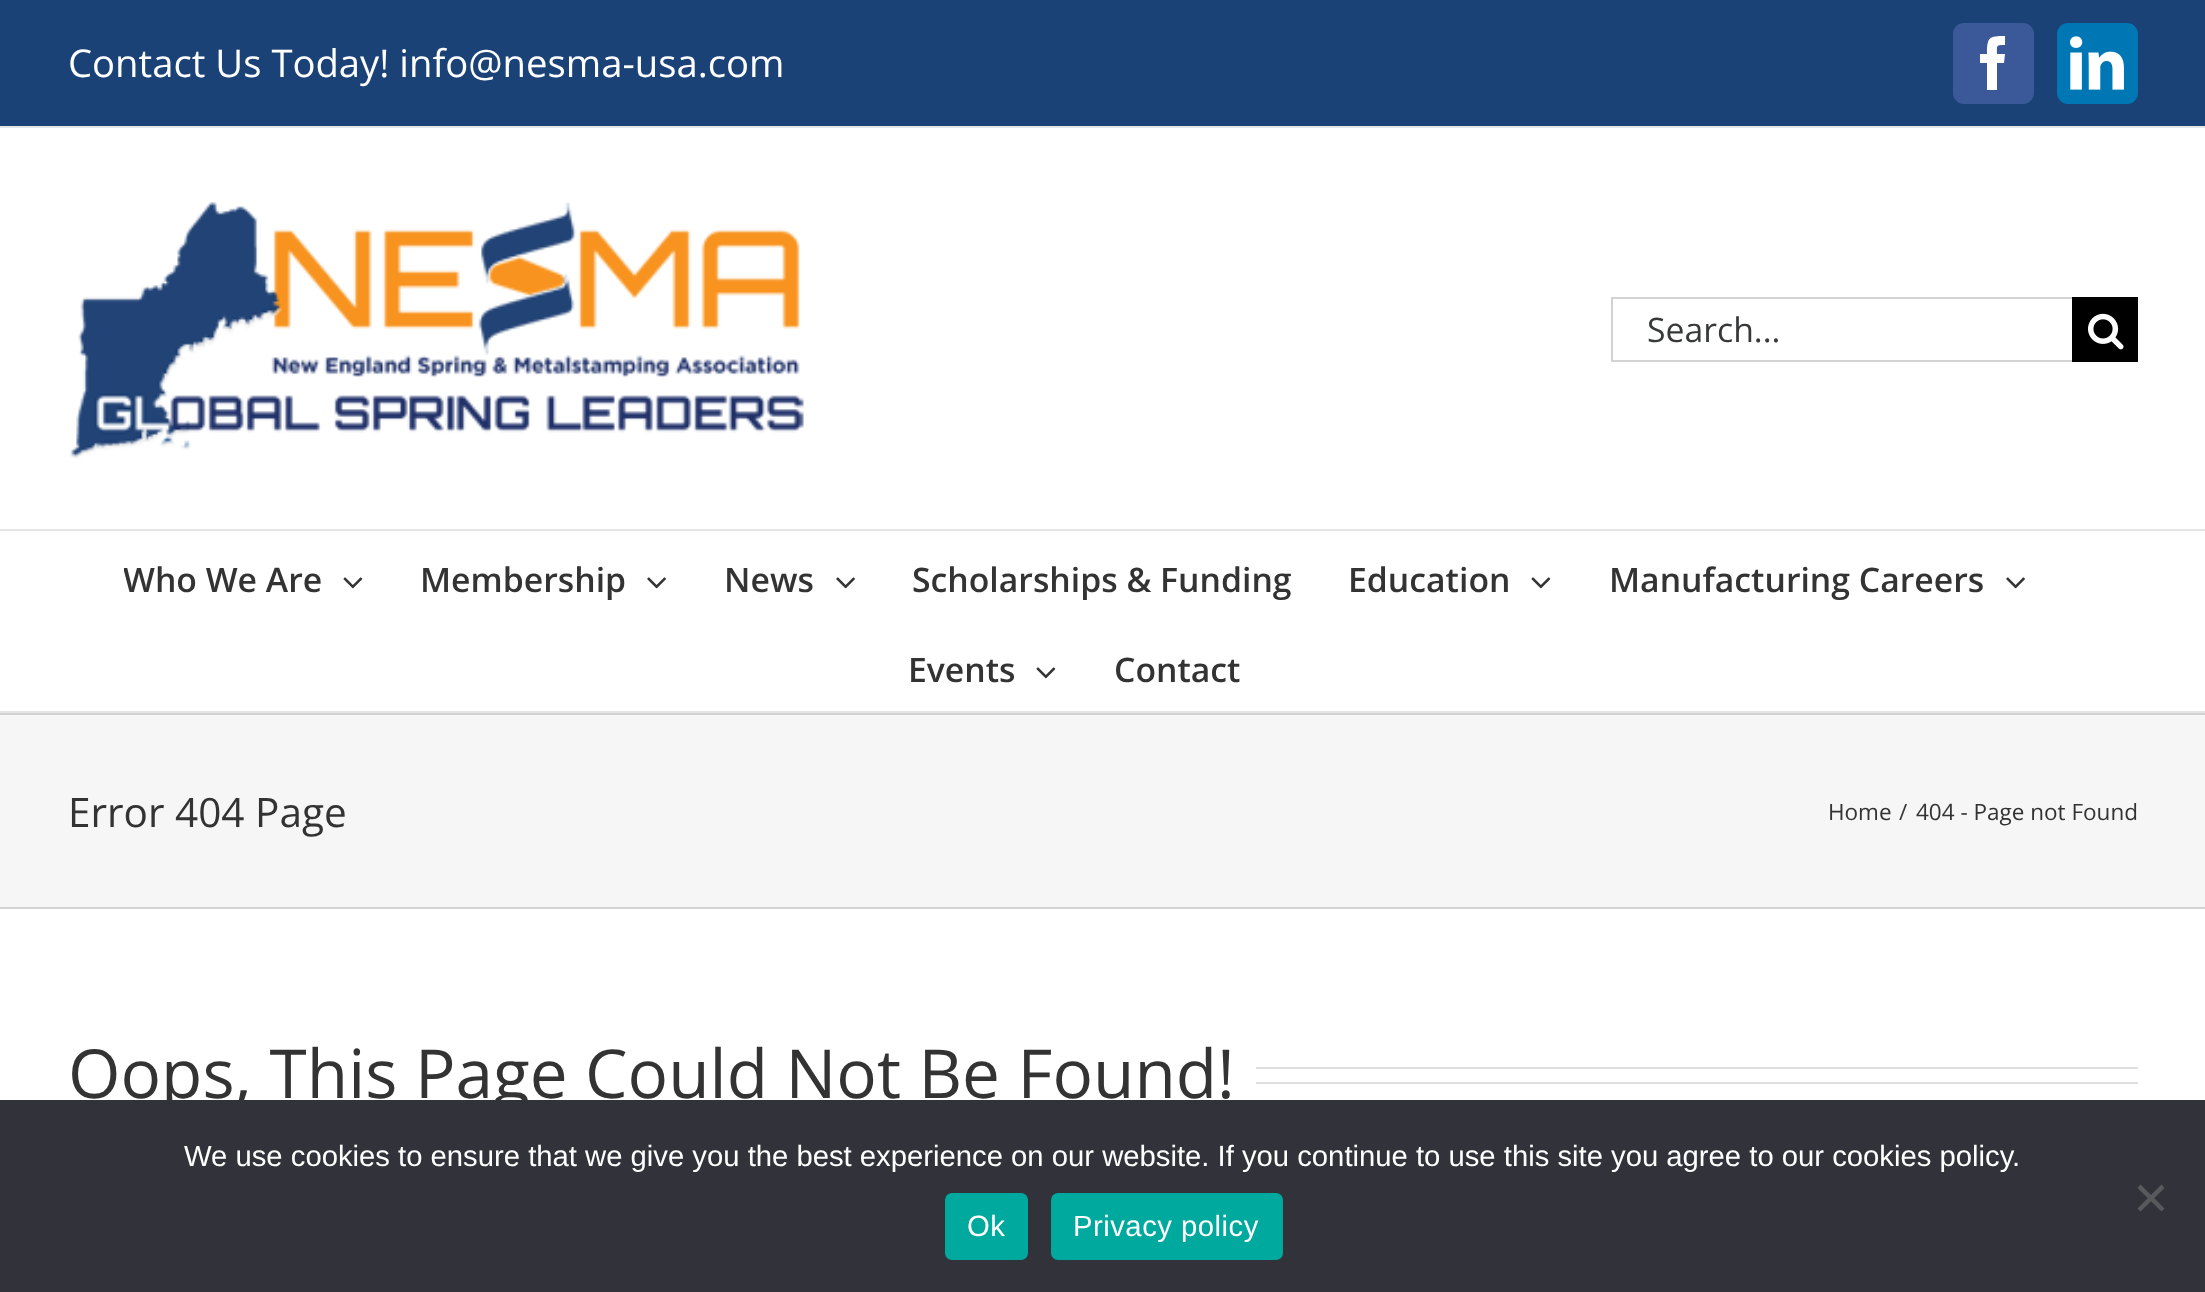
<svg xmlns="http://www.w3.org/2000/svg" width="2205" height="1292">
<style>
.a{font:38.25px Open Sans;fill:#fff}
.b{font:33.75px Open Sans;fill:#363839}
.c{font:600 33.75px Open Sans;fill:#333}
.d{font:40.5px Open Sans;fill:#333}
.e{font:22.5px Open Sans;fill:#333}
.f{font:67.5px Open Sans;fill:#333}
.g{font:29.25px Liberation Sans;fill:#fff}
.h{font:29.25px Liberation Sans;letter-spacing:0.5px;fill:#fff}
</style>
<defs>
<clipPath id="clip1"><path d="M124 531h297v90H124z"/></clipPath>
</defs>
<rect width="100%" height="100%" fill="#fff"/>
<path fill="#1a4276" d="M0 0h2205v126H0z"/>
<path fill="#e5e5e5" d="M0 126h2205v2H0z"/>
<rect fill="#3b5998" stroke="#3b5998" stroke-width="2" x="1954" y="24" width="79" height="79" rx="10"/>
<path fill="#fff" d="M1997 90h-10v-27h-7v-9h7c0-17 2-18 18-18v9c-9 0-8 0-8 9h8l-1 9h-7z"/>
<rect fill="#0077b5" stroke="#0077b5" stroke-width="2" x="2058" y="24" width="79" height="79" rx="10"/>
<image href="1.png" x="2070" y="36" width="54" height="54"/>
<path fill="#e5e5e5" d="M0 529h2205v2H0z"/>
<image href="2.png" x="69" y="202" width="735" height="257"/>
<path fill="#d2d2d2" d="M1611 297h461v2H1611z"/>
<path fill="#d2d2d2" d="M1611 360h461v2H1611z"/>
<path fill="#d2d2d2" d="M1611 297h2v65H1611z"/>
<path fill="#000" d="M2072 297h66v65H2072z"/>
<image href="3.png" x="2088" y="313" width="36" height="37"/>
<path fill="#e5e5e5" d="M0 711h2205v2H0z"/>
<image href="4.png" x="343" y="577" width="20" height="12"/>
<image href="5.png" x="647" y="577" width="19" height="12"/>
<image href="5.png" x="836" y="577" width="19" height="12"/>
<image href="4.png" x="1531" y="577" width="20" height="12"/>
<image href="5.png" x="2006" y="577" width="19" height="12"/>
<image href="4.png" x="1036" y="667" width="20" height="12"/>
<path fill="#f6f6f6" d="M0 715h2205v192H0z"/>
<path fill="#d2d3d4" d="M0 713h2205v2H0z"/>
<path fill="#d2d3d4" d="M0 907h2205v2H0z"/>
<path fill="#e0dede" d="M1256 1067h882v2H1256z"/>
<path fill="#e0dede" d="M1256 1082h882v2H1256z"/>
<text class="a" x="68" y="77">Contact Us Today! info@nesma-usa.com</text>
<text class="b" x="1647" y="342">Search...</text>
<g clip-path="url(#clip1)">
<text class="c" x="123" y="592">Who We Are</text>
</g>
<text class="c" x="420" y="592">Membership</text>
<text class="c" x="724" y="592">News</text>
<text class="c" x="912" y="592">Scholarships &amp; Funding</text>
<text class="c" x="1348" y="592">Education</text>
<text class="c" x="1609" y="592">Manufacturing Careers</text>
<text class="c" x="908" y="682">Events</text>
<text class="c" x="1114" y="682">Contact</text>
<text class="d" x="68" y="827">Error 404 Page</text>
<text class="e" x="1828" y="820">Home</text>
<text class="e" x="1899" y="820">/</text>
<text class="e" x="1916" y="820">404 - Page not Found</text>
<text class="f" x="68" y="1098">Oops, This Page Could Not Be Found!</text>
<path fill="#32323a" d="M0 1100h2205v192H0z"/>
<text class="g" x="184" y="1166">We use cookies to ensure that we give you the best experience on our website. If you continue to use this site you agree to our cookies policy.</text>
<path fill="#59595d" d="M2161.5 1184.5l3 3.5l-24 23.5l-3-3z"/>
<path fill="#59595d" d="M2137.5 1188l3-3.5l24 24l-3 3z"/>
<rect fill="#00a99d" x="945" y="1193" width="83" height="67" rx="7"/>
<text class="h" x="967" y="1236">Ok</text>
<rect fill="#00a99d" x="1051" y="1193" width="232" height="67" rx="7"/>
<text class="h" x="1073" y="1236">Privacy policy</text>
</svg>
